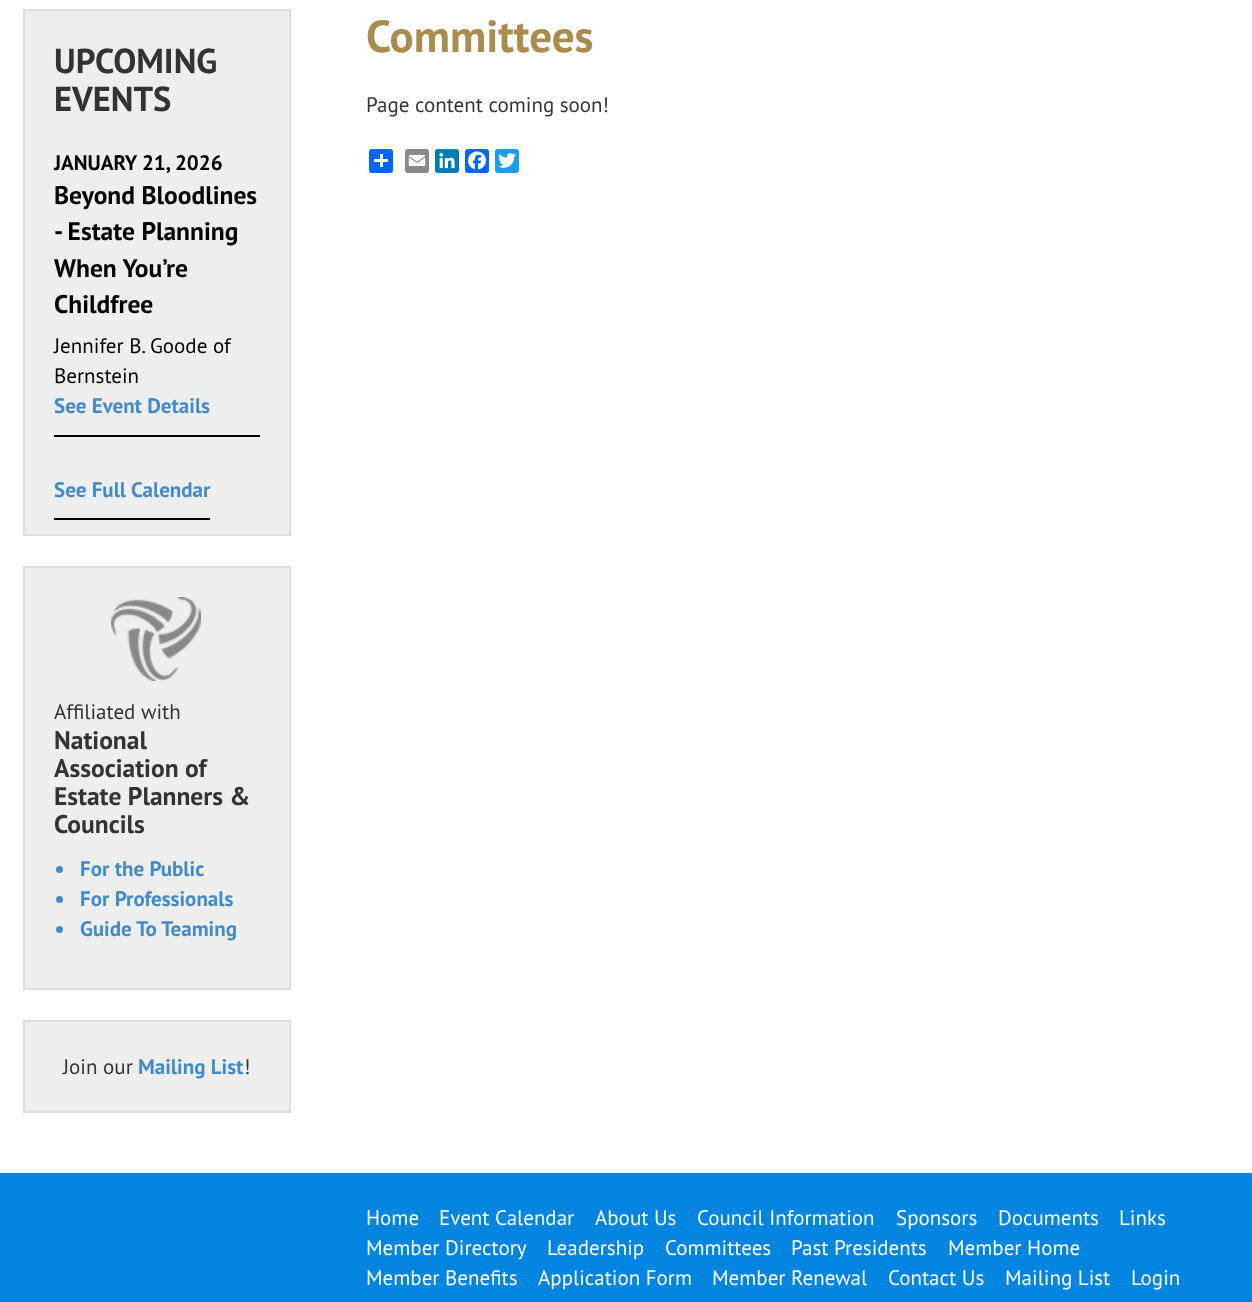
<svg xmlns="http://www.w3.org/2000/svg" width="1252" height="1302">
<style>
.a{font:bold 34.5px PT Sans;fill:#333}
.b{font:bold 21px PT Sans;fill:#000}
.c{font:bold 25.5px PT Sans;fill:#000}
.d{font:21px PT Sans;fill:#000}
.e{font:bold 21px PT Sans;fill:#428bca}
.f{font:21px PT Sans;fill:#333}
.g{font:bold 25.5px PT Sans;fill:#333}
.h{font:bold 45px PT Sans;fill:#a88d4f}
.i{font:21px PT Sans;fill:#fff}
</style>
<rect width="100%" height="100%" fill="#fff"/>
<path fill="#eee" stroke="#ddd" stroke-width="2" d="M24 10h266v525H24z"/>
<path fill="#000" d="M54 435h206v2H54z"/>
<path fill="#000" d="M54 518h156v2H54z"/>
<path fill="#eee" stroke="#ddd" stroke-width="2" d="M24 567h266v422H24z"/>
<image href="1.png" x="111" y="597" width="90" height="84"/>
<circle fill="#428bca" cx="59.5" cy="869.5" r="3.5"/>
<circle fill="#428bca" cx="59.5" cy="899.5" r="3.5"/>
<circle fill="#428bca" cx="59.5" cy="929.5" r="3.5"/>
<path fill="#eee" stroke="#ddd" stroke-width="2" d="M24 1021h266v91H24z"/>
<rect fill="#0166ff" x="369" y="149" width="24" height="24" rx="3"/>
<path fill="#fff" d="M380 154h3v13H380z"/>
<path fill="#fff" d="M374 159h14v3H374z"/>
<rect fill="#888990" x="405" y="149" width="24" height="24" rx="3"/>
<image href="2.png" x="408" y="154" width="18" height="13"/>
<rect fill="#007bb5" x="435" y="149" width="24" height="24" rx="3"/>
<image href="3.png" x="439" y="152" width="16" height="17"/>
<rect fill="#0866ff" x="465" y="149" width="24" height="24" rx="3"/>
<image href="4.png" x="468" y="151" width="18" height="19"/>
<rect fill="#1d9bf0" x="495" y="149" width="24" height="24" rx="3"/>
<image href="5.png" x="498" y="153" width="18" height="15"/>
<path fill="#0185e1" d="M0 1173h1252v129H0z"/>
<text class="a" x="54" y="73">UPCOMING</text>
<text class="a" x="54" y="111">EVENTS</text>
<text class="b" x="54" y="170">JANUARY 21, 2026</text>
<text class="c" x="54" y="204">Beyond Bloodlines</text>
<text class="c" x="54" y="240">- Estate Planning</text>
<text class="c" x="54" y="277">When You’re</text>
<text class="c" x="54" y="313">Childfree</text>
<text class="d" x="54" y="353">Jennifer B. Goode of</text>
<text class="d" x="54" y="383">Bernstein</text>
<text class="e" x="54" y="413">See Event Details</text>
<text class="e" x="54" y="497">See Full Calendar</text>
<text class="f" x="54" y="719">Affiliated with</text>
<text class="g" x="54" y="749">National</text>
<text class="g" x="54" y="777">Association of</text>
<text class="g" x="54" y="805">Estate Planners &amp;</text>
<text class="g" x="54" y="833">Councils</text>
<text class="e" x="80" y="876">For the Public</text>
<text class="e" x="80" y="906">For Professionals</text>
<text class="e" x="80" y="936">Guide To Teaming</text>
<text class="f" x="63" y="1074">Join our</text>
<text class="e" x="138" y="1074">Mailing List</text>
<text class="f" x="244" y="1074">!</text>
<text class="h" x="366" y="52">Committees</text>
<text class="f" x="366" y="112">Page content coming soon!</text>
<text class="i" x="366" y="1225">Home</text>
<text class="i" x="439" y="1225">Event Calendar</text>
<text class="i" x="595" y="1225">About Us</text>
<text class="i" x="697" y="1225">Council Information</text>
<text class="i" x="896" y="1225">Sponsors</text>
<text class="i" x="998" y="1225">Documents</text>
<text class="i" x="1119" y="1225">Links</text>
<text class="i" x="366" y="1255">Member Directory</text>
<text class="i" x="547" y="1255">Leadership</text>
<text class="i" x="665" y="1255">Committees</text>
<text class="i" x="791" y="1255">Past Presidents</text>
<text class="i" x="948" y="1255">Member Home</text>
<text class="i" x="366" y="1285">Member Benefits</text>
<text class="i" x="538" y="1285">Application Form</text>
<text class="i" x="712" y="1285">Member Renewal</text>
<text class="i" x="888" y="1285">Contact Us</text>
<text class="i" x="1005" y="1285">Mailing List</text>
<text class="i" x="1131" y="1285">Login</text>
</svg>
